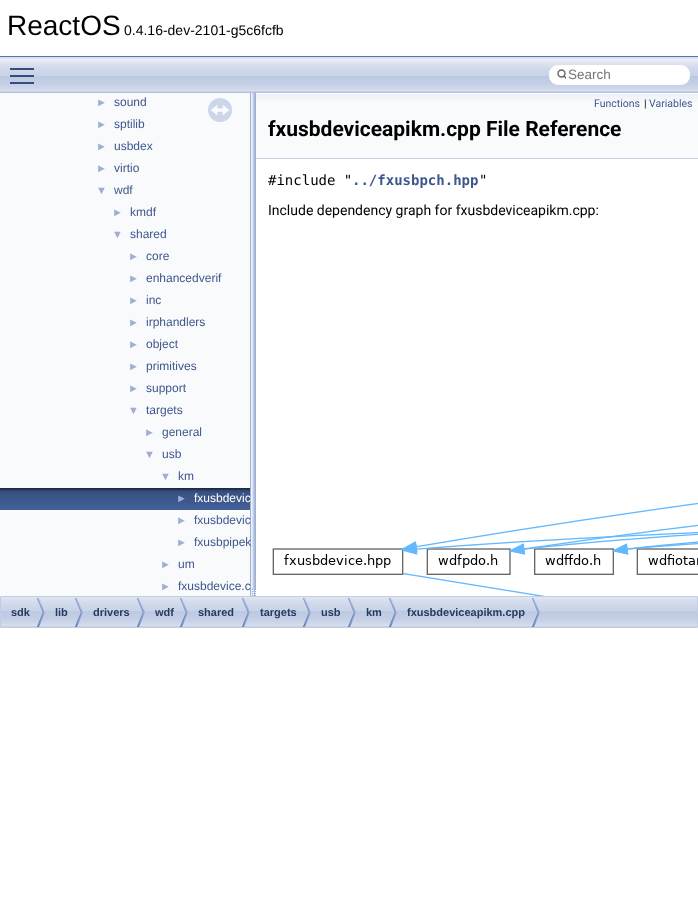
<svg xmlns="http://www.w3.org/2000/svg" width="698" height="916">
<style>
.a{font:28px Liberation Sans;fill:#000}
.b{font:14px Liberation Sans;fill:#000}
.c{font:13.5px Liberation Sans;fill:#757575}
.d{font:11px Liberation Sans;fill:#9cafd4}
.e{font:12px Liberation Sans;fill:#3d578c}
.f{font:12px Liberation Sans;fill:#fff}
.g{font:10.5px Roboto;fill:#3d578c}
.h{font:10.5px Roboto;fill:#000}
.i{font:bold 21px Roboto;fill:#000}
.j{font:14px DejaVu Sans Mono;fill:#000}
.k{font:bold 14px DejaVu Sans Mono;fill:#3d578c}
.l{font:14px Roboto;fill:#000}
.m{font:bold 11px Liberation Sans;fill:#283a5d}
</style>
<defs>
<clipPath id="clip1"><path d="M556 65h10v19H556z"/></clipPath>
</defs>
<rect width="100%" height="100%" fill="#fff"/>
<path fill="#5373b4" d="M0 56h698v1H0z"/>
<image href="1.png" x="0" y="57" width="698" height="36"/>
<path fill="#364d7c" d="M10 75h24v2H10z"/>
<path fill="#364d7c" d="M10 68h24v2H10z"/>
<path fill="#364d7c" d="M10 82h24v2H10z"/>
<rect fill="#fff" x="549" y="65" width="141" height="20" rx="9"/>
<circle fill="none" stroke="#656565" stroke-width="1.4" cx="561.5" cy="73.5" r="3.5"/>
<g clip-path="url(#clip1)">
<path fill="none" stroke="#656565" stroke-width="1.4" stroke-linecap="round" d="M564 76l3 3"/>
</g>
<path fill="#f9fafc" d="M0 93h250v503H0z"/>
<image href="2.png" x="0" y="488" width="250" height="22"/>
<image href="3.png" x="208" y="98" width="24" height="24"/>
<image href="4.png" x="250" y="93" width="6" height="503"/>
<path fill="#f9fafc" d="M256 101h442v57H256z"/>
<image href="5.png" x="256" y="93" width="442" height="8"/>
<path fill="#c4cfe5" d="M256 158h442v1H256z"/>
<image href="6.png" x="272" y="502" width="426" height="94"/>
<image href="7.png" x="1" y="597" width="696" height="30"/>
<path fill="none" stroke="#c2cde4" d="M0.5 596.5h697v31H0.5z"/>
<image href="8.png" x="37" y="598" width="8" height="29"/>
<image href="8.png" x="75" y="598" width="8" height="29"/>
<image href="8.png" x="137" y="598" width="8" height="29"/>
<image href="8.png" x="180" y="598" width="8" height="29"/>
<image href="8.png" x="242" y="598" width="8" height="29"/>
<image href="8.png" x="303" y="598" width="8" height="29"/>
<image href="8.png" x="348" y="598" width="8" height="29"/>
<image href="8.png" x="389" y="598" width="8" height="29"/>
<image href="8.png" x="532" y="598" width="8" height="29"/>
<text class="a" x="7" y="35">ReactOS</text>
<text class="b" x="124" y="35">0.4.16-dev-2101-g5c6fcfb</text>
<text class="c" x="568" y="79">Search</text>
<text class="d" x="96" y="106">►</text>
<text class="e" x="114" y="106">sound</text>
<text class="d" x="96" y="128">►</text>
<text class="e" x="114" y="128">sptilib</text>
<text class="d" x="96" y="150">►</text>
<text class="e" x="114" y="150">usbdex</text>
<text class="d" x="96" y="172">►</text>
<text class="e" x="114" y="172">virtio</text>
<text class="d" x="96" y="194">▼</text>
<text class="e" x="114" y="194">wdf</text>
<text class="d" x="112" y="216">►</text>
<text class="e" x="130" y="216">kmdf</text>
<text class="d" x="112" y="238">▼</text>
<text class="e" x="130" y="238">shared</text>
<text class="d" x="128" y="260">►</text>
<text class="e" x="146" y="260">core</text>
<text class="d" x="128" y="282">►</text>
<text class="e" x="146" y="282">enhancedverif</text>
<text class="d" x="128" y="304">►</text>
<text class="e" x="146" y="304">inc</text>
<text class="d" x="128" y="326">►</text>
<text class="e" x="146" y="326">irphandlers</text>
<text class="d" x="128" y="348">►</text>
<text class="e" x="146" y="348">object</text>
<text class="d" x="128" y="370">►</text>
<text class="e" x="146" y="370">primitives</text>
<text class="d" x="128" y="392">►</text>
<text class="e" x="146" y="392">support</text>
<text class="d" x="128" y="414">▼</text>
<text class="e" x="146" y="414">targets</text>
<text class="d" x="144" y="436">►</text>
<text class="e" x="162" y="436">general</text>
<text class="d" x="144" y="458">▼</text>
<text class="e" x="162" y="458">usb</text>
<text class="d" x="160" y="480">▼</text>
<text class="e" x="178" y="480">km</text>
<text class="d" x="176" y="502">►</text>
<text class="f" x="194" y="502">fxusbdevic</text>
<text class="d" x="176" y="524">►</text>
<text class="e" x="194" y="524">fxusbdevic</text>
<text class="d" x="176" y="546">►</text>
<text class="e" x="194" y="546">fxusbpipek</text>
<text class="d" x="160" y="568">►</text>
<text class="e" x="178" y="568">um</text>
<text class="d" x="160" y="590">►</text>
<text class="e" x="178" y="590">fxusbdevice.c</text>
<text class="g" x="594" y="107">Functions</text>
<text class="h" x="644" y="107">|</text>
<text class="g" x="649" y="107">Variables</text>
<text class="i" x="268" y="136">fxusbdeviceapikm.cpp File Reference</text>
<text class="j" x="268" y="185">#include "</text>
<text class="k" x="352" y="185">../fxusbpch.hpp</text>
<text class="j" x="479" y="185">"</text>
<text class="l" x="268" y="215">Include dependency graph for fxusbdeviceapikm.cpp:</text>
<text class="m" x="11" y="616">sdk</text>
<text class="m" x="55" y="616">lib</text>
<text class="m" x="93" y="616">drivers</text>
<text class="m" x="155" y="616">wdf</text>
<text class="m" x="198" y="616">shared</text>
<text class="m" x="260" y="616">targets</text>
<text class="m" x="321" y="616">usb</text>
<text class="m" x="366" y="616">km</text>
<text class="m" x="407" y="616">fxusbdeviceapikm.cpp</text>
</svg>
